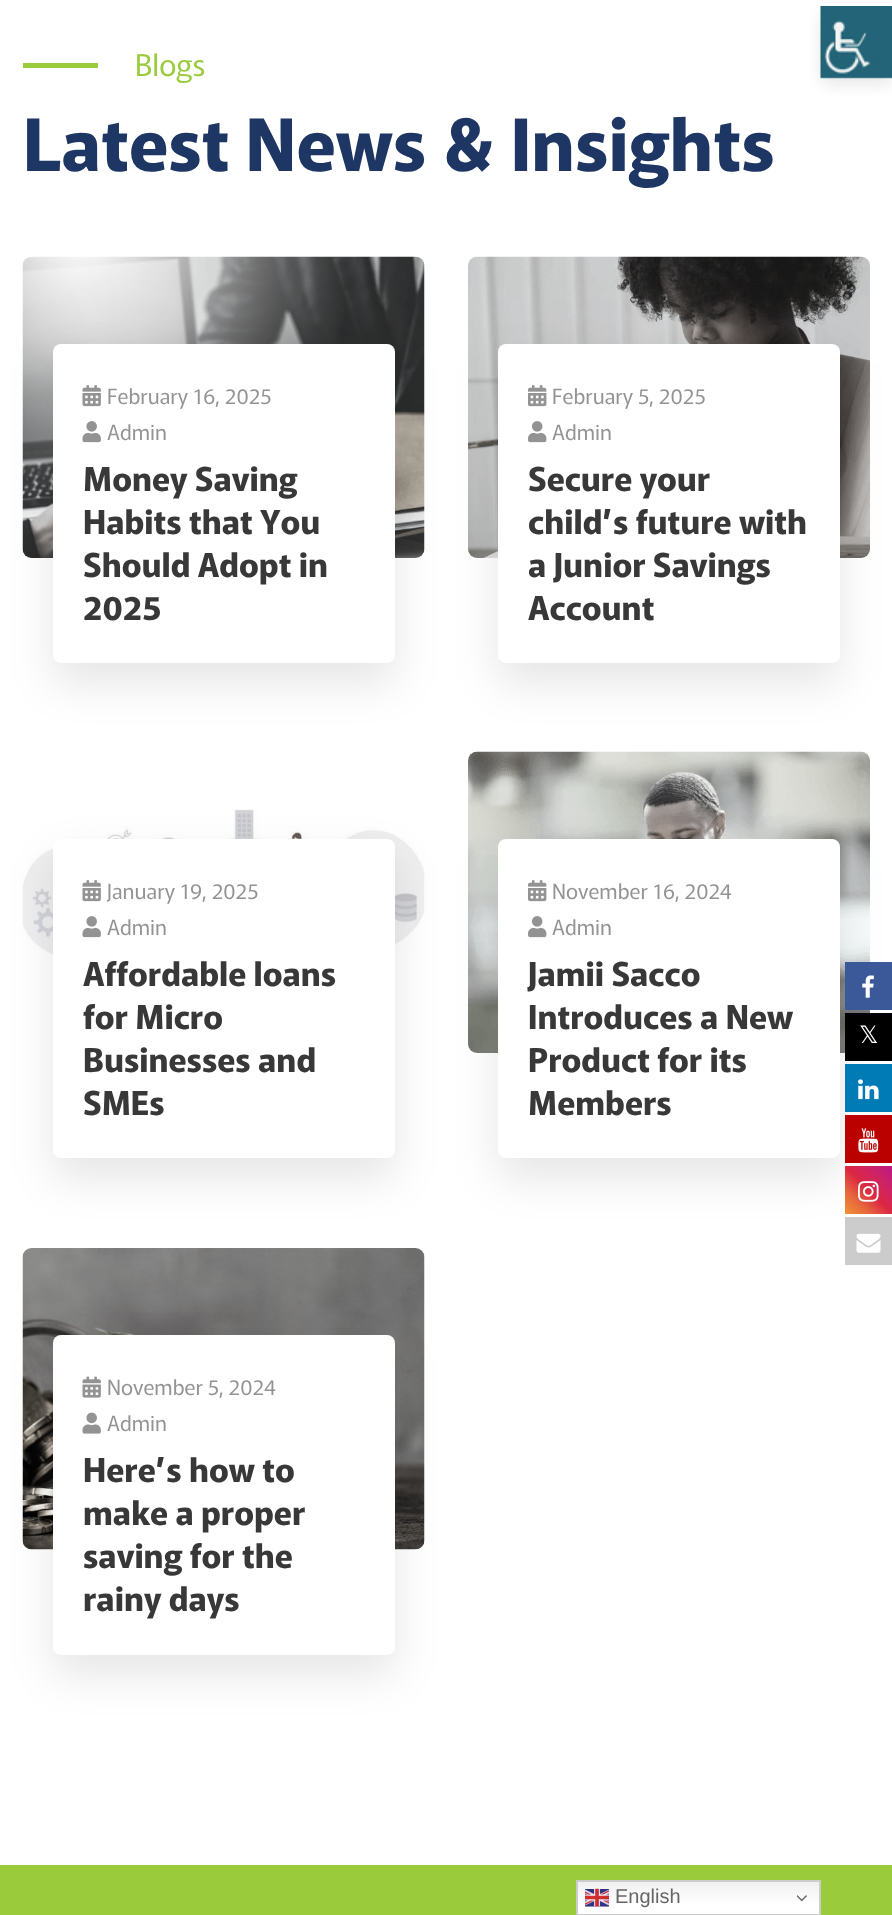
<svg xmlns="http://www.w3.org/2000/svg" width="892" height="1915">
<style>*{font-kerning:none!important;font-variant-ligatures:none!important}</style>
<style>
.a{font:30px Murecho;fill:#99cb3b}
.b{font:bold 72px Murecho;fill:#1d3664}
.c{font:21px Murecho;fill:#939393}
.d{font:bold 33px Murecho;fill:#383838}
.e{font:24px DejaVu Sans;fill:#fff}
.f{font:20px Liberation Sans;fill:#666}
</style>
<defs>
<linearGradient id="g1" gradientUnits="userSpaceOnUse" x1="845" y1="1214" x2="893" y2="1166"><stop offset="0" stop-color="#f09433"/><stop offset="0.25" stop-color="#e6683c"/><stop offset="0.5" stop-color="#dc2743"/><stop offset="0.75" stop-color="#cc2366"/><stop offset="1" stop-color="#bc1888"/></linearGradient>
<linearGradient id="g2" gradientUnits="userSpaceOnUse" x1="698" y1="1880" x2="698" y2="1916"><stop offset="0" stop-color="#efefef"/><stop offset="0.7" stop-color="#fff"/></linearGradient>
</defs>
<rect width="100%" height="100%" fill="#fff"/>
<path fill="#99cb3b" d="M23 63h75v5H23z"/>
<image href="1.png" x="22" y="256" width="403" height="302"/>
<rect fill="#0000001a" filter="blur(22px)" x="53" y="363" width="342" height="320" rx="8"/>
<rect fill="#fff" x="53" y="344" width="342" height="319" rx="8"/>
<image href="2.png" x="82" y="385" width="19" height="22"/>
<image href="3.png" x="82" y="421" width="19" height="22"/>
<image href="4.png" x="468" y="256" width="402" height="302"/>
<rect fill="#0000001a" filter="blur(22px)" x="498" y="363" width="342" height="320" rx="8"/>
<rect fill="#fff" x="498" y="344" width="342" height="319" rx="8"/>
<image href="5.png" x="528" y="385" width="19" height="22"/>
<image href="6.png" x="528" y="421" width="19" height="22"/>
<image href="7.png" x="22" y="809" width="403" height="189"/>
<rect fill="#0000001a" filter="blur(22px)" x="53" y="858" width="342" height="320" rx="8"/>
<rect fill="#fff" x="53" y="839" width="342" height="319" rx="8"/>
<image href="2.png" x="82" y="880" width="19" height="22"/>
<image href="3.png" x="82" y="916" width="19" height="22"/>
<image href="8.png" x="468" y="751" width="402" height="302"/>
<rect fill="#0000001a" filter="blur(22px)" x="498" y="858" width="342" height="320" rx="8"/>
<rect fill="#fff" x="498" y="839" width="342" height="319" rx="8"/>
<image href="5.png" x="528" y="880" width="19" height="22"/>
<image href="6.png" x="528" y="916" width="19" height="22"/>
<image href="9.png" x="22" y="1248" width="403" height="302"/>
<rect fill="#0000001a" filter="blur(22px)" x="53" y="1355" width="342" height="319" rx="8"/>
<rect fill="#fff" x="53" y="1335" width="342" height="320" rx="8"/>
<image href="10.png" x="82" y="1376" width="19" height="22"/>
<image href="11.png" x="82" y="1412" width="19" height="22"/>
<path fill="#99cb3b" d="M0 1865h892v50H0z"/>
<rect fill="#0c0c0c1a" filter="blur(7.5px)" x="821" y="12" width="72" height="72" rx="8"/>
<rect fill="#fff" x="821" width="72" height="72" rx="8"/>
<image href="12.png" x="820" y="6" width="72" height="73"/>
<path fill="#3b5998" d="M845 962h47v48H845z"/>
<image href="13.png" x="862" y="975" width="12" height="23"/>
<path fill="#000" d="M845 1013h47v48H845z"/>
<path fill="#007bb6" d="M845 1064h47v48H845z"/>
<image href="14.png" x="858" y="1079" width="21" height="21"/>
<path fill="#b00" d="M845 1115h47v48H845z"/>
<image href="15.png" x="858" y="1128" width="21" height="25"/>
<path fill="url(#g1)" d="M845 1166h47v48H845z"/>
<image href="16.png" x="858" y="1181" width="21" height="21"/>
<path fill="#ccc" d="M845 1217h47v48H845z"/>
<image href="17.png" x="856" y="1233" width="25" height="20"/>
<path fill="url(#g2)" d="M578 1882h241v32H578z"/>
<path fill="none" stroke="#ccc" stroke-width="2" d="M577 1881h243v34H577z"/>
<image href="18.png" x="585" y="1888" width="24" height="19"/>
<image href="19.png" x="797" y="1895" width="10" height="7"/>
<text class="a" x="135" y="76">Blogs</text>
<text class="b" x="23" y="171">Latest News &amp; Insights</text>
<text class="c" x="107" y="404">February 16, 2025</text>
<text class="c" x="107" y="440">Admin</text>
<text class="d" x="83" y="491">Money Saving</text>
<text class="d" x="83" y="534">Habits that You</text>
<text class="d" x="83" y="577">Should Adopt in</text>
<text class="d" x="83" y="620">2025</text>
<text class="c" x="552" y="404">February 5, 2025</text>
<text class="c" x="552" y="440">Admin</text>
<text class="d" x="528" y="491">Secure your</text>
<text class="d" x="528" y="534">child’s future with</text>
<text class="d" x="528" y="577">a Junior Savings</text>
<text class="d" x="528" y="620">Account</text>
<text class="c" x="107" y="899">January 19, 2025</text>
<text class="c" x="107" y="935">Admin</text>
<text class="d" x="83" y="986">Affordable loans</text>
<text class="d" x="83" y="1029">for Micro</text>
<text class="d" x="83" y="1072">Businesses and</text>
<text class="d" x="83" y="1115">SMEs</text>
<text class="c" x="552" y="899">November 16, 2024</text>
<text class="c" x="552" y="935">Admin</text>
<text class="d" x="528" y="986">Jamii Sacco</text>
<text class="d" x="528" y="1029">Introduces a New</text>
<text class="d" x="528" y="1072">Product for its</text>
<text class="d" x="528" y="1115">Members</text>
<text class="c" x="107" y="1395">November 5, 2024</text>
<text class="c" x="107" y="1431">Admin</text>
<text class="d" x="83" y="1482">Here’s how to</text>
<text class="d" x="83" y="1525">make a proper</text>
<text class="d" x="83" y="1568">saving for the</text>
<text class="d" x="83" y="1611">rainy days</text>
<text class="e" x="859" y="1043">𝕏</text>
<text class="f" x="615" y="1903">English</text>
</svg>
